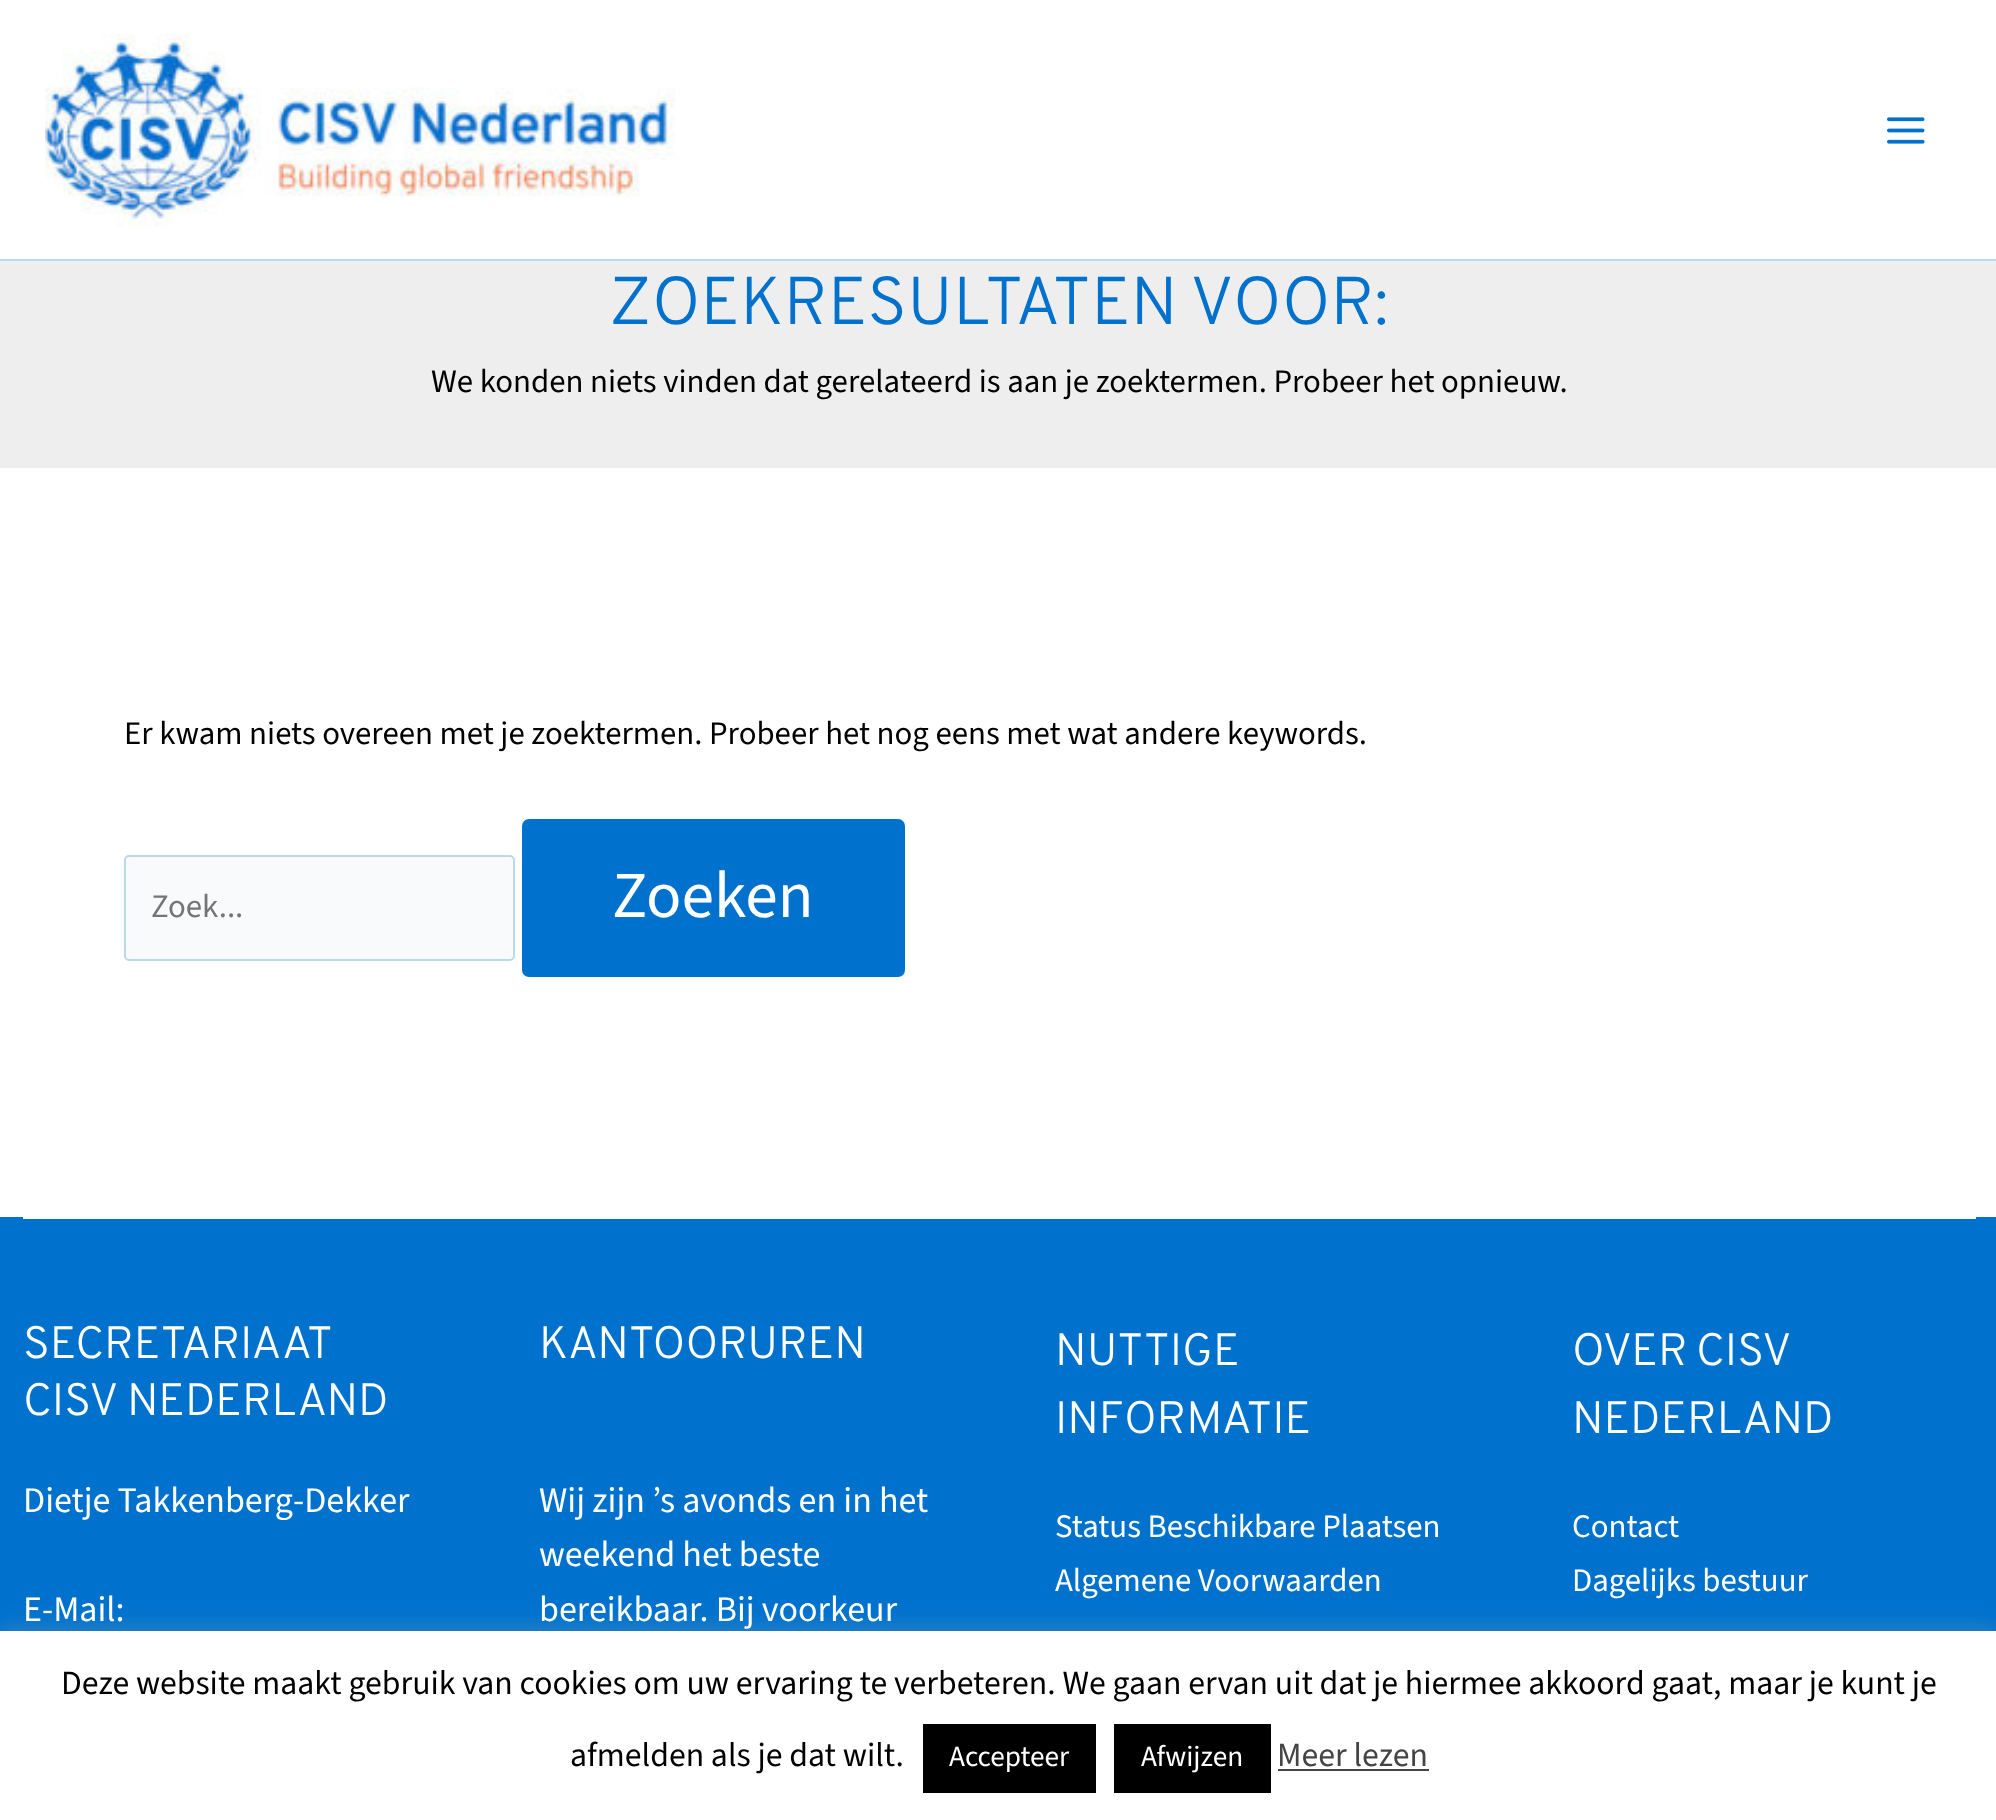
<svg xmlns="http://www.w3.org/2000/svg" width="1996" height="1820">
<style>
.a{font:300 67.5px Overpass;fill:#0072ce}
.b{font:200 32.85px 'Source Sans 3';fill:#000}
.c{font:200 32.85px 'Source Sans 3';fill:#757575}
.d{font:200 65.5px 'Source Sans 3';fill:#fff}
.e{font:300 45.25px Overpass;fill:#fff}
.f{font:200 36px 'Source Sans 3';fill:#fff}
.g{font:200 32.85px 'Source Sans 3';fill:#fff}
.h{font:200 33.75px 'Source Sans 3';fill:#000}
.i{font:200 29.25px 'Source Sans 3';fill:#fff}
.j{font:200 33.75px 'Source Sans 3';fill:#444}
</style>
<rect width="100%" height="100%" fill="#fff"/>
<path fill="#b9d9eb" d="M0 259h1996v2H0z"/>
<image href="1.png" x="45" y="33" width="631" height="194"/>
<image href="2.png" x="1887" y="117" width="38" height="27"/>
<path fill="#eee" d="M0 261h1996v207H0z"/>
<rect fill="#f9fafb" stroke="#b9d9eb" stroke-width="2" x="125" y="856" width="389" height="104" rx="4"/>
<rect fill="#0072ce" x="522" y="819" width="383" height="158" rx="7"/>
<path fill="#0072ce" d="M0 1217h1996v414H0z"/>
<path fill="#fff" d="M23 1217h1953v2H23z"/>
<path fill="#acabab4d" filter="blur(11px)" d="M0 1629h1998v189H0z"/>
<path fill="#fff" d="M0 1631h1996v189H0z"/>
<path fill="#000" d="M923 1724h173v69H923z"/>
<path fill="#000" d="M1114 1724h157v69H1114z"/>
<path fill="#444" d="M1278 1769h151v2H1278z"/>
<text class="a" x="609" y="324">ZOEKRESULTATEN VOOR:</text>
<text class="b" x="431" y="392">We konden niets vinden dat gerelateerd is aan je zoektermen. Probeer het opnieuw.</text>
<text class="b" x="124" y="744">Er kwam niets overeen met je zoektermen. Probeer het nog eens met wat andere keywords.</text>
<text class="c" x="151" y="917">Zoek...</text>
<text class="d" x="612" y="917">Zoeken</text>
<text class="e" x="23" y="1358">SECRETARIAAT</text>
<text class="e" x="23" y="1415">CISV NEDERLAND</text>
<text class="f" x="23" y="1512">Dietje Takkenberg-Dekker</text>
<text class="f" x="23" y="1621">E-Mail:</text>
<text class="e" x="539" y="1358">KANTOORUREN</text>
<text class="f" x="539" y="1512">Wij zijn ’s avonds en in het</text>
<text class="f" x="539" y="1566">weekend het beste</text>
<text class="f" x="539" y="1621">bereikbaar. Bij voorkeur</text>
<text class="e" x="1055" y="1365">NUTTIGE</text>
<text class="e" x="1055" y="1433">INFORMATIE</text>
<text class="g" x="1055" y="1537">Status Beschikbare Plaatsen</text>
<text class="g" x="1055" y="1591">Algemene Voorwaarden</text>
<text class="e" x="1572" y="1365" word-spacing="-2">OVER CISV</text>
<text class="e" x="1572" y="1433">NEDERLAND</text>
<text class="g" x="1572" y="1537">Contact</text>
<text class="g" x="1572" y="1591">Dagelijks bestuur</text>
<text class="h" x="61" y="1694">Deze website maakt gebruik van cookies om uw ervaring te verbeteren. We gaan ervan uit dat je hiermee akkoord gaat, maar je kunt je</text>
<text class="h" x="570" y="1766">afmelden als je dat wilt.</text>
<text class="i" x="949" y="1766">Accepteer</text>
<text class="i" x="1141" y="1766">Afwijzen</text>
<text class="j" x="1277" y="1766">Meer lezen</text>
</svg>
